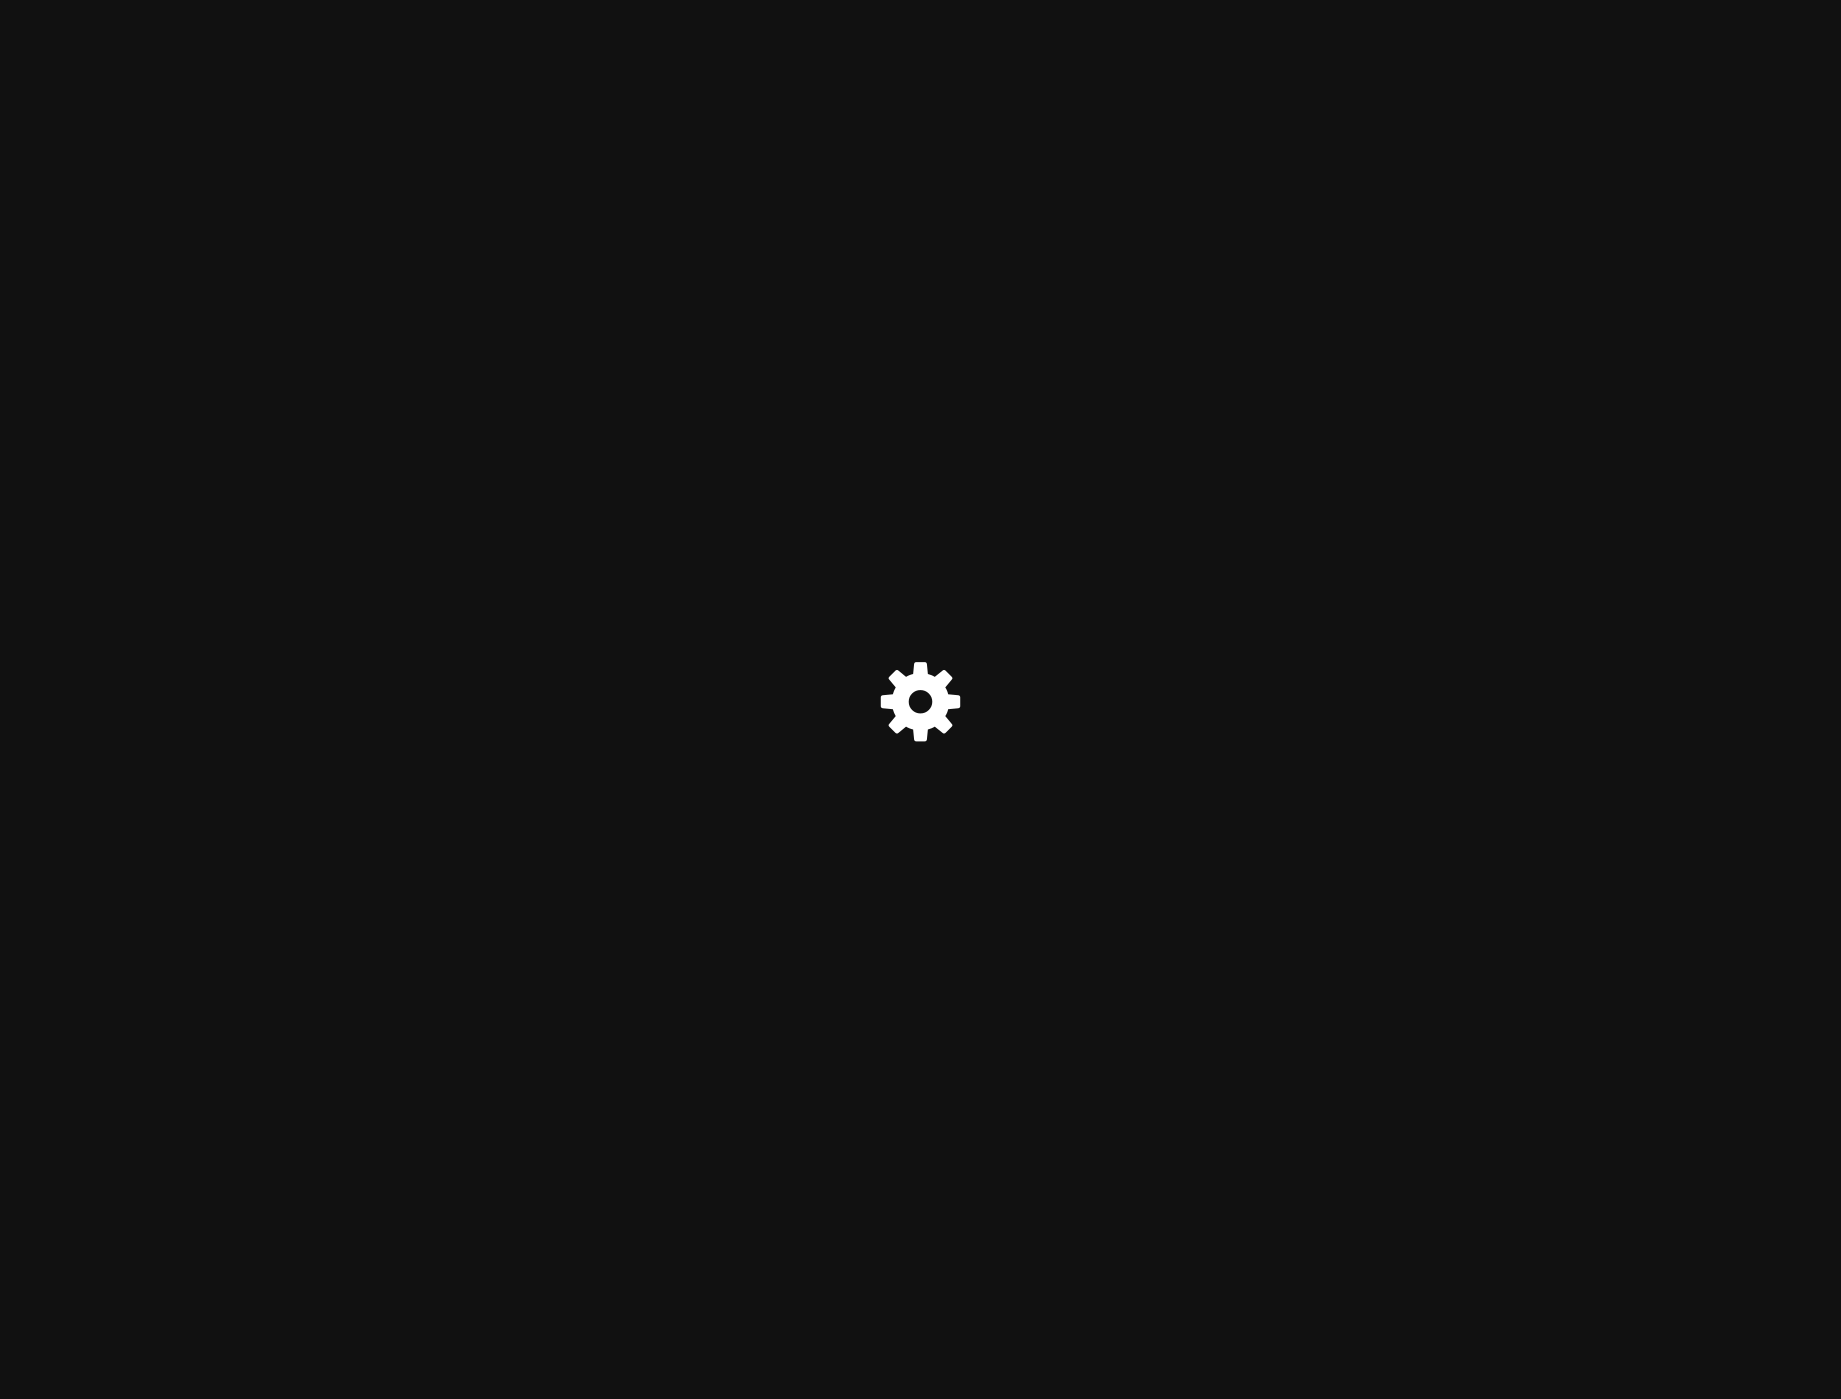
<svg xmlns="http://www.w3.org/2000/svg" width="1841" height="1399">
<rect width="100%" height="100%" fill="#111"/>
<image href="1.png" x="880" y="662" width="81" height="80"/>
</svg>
